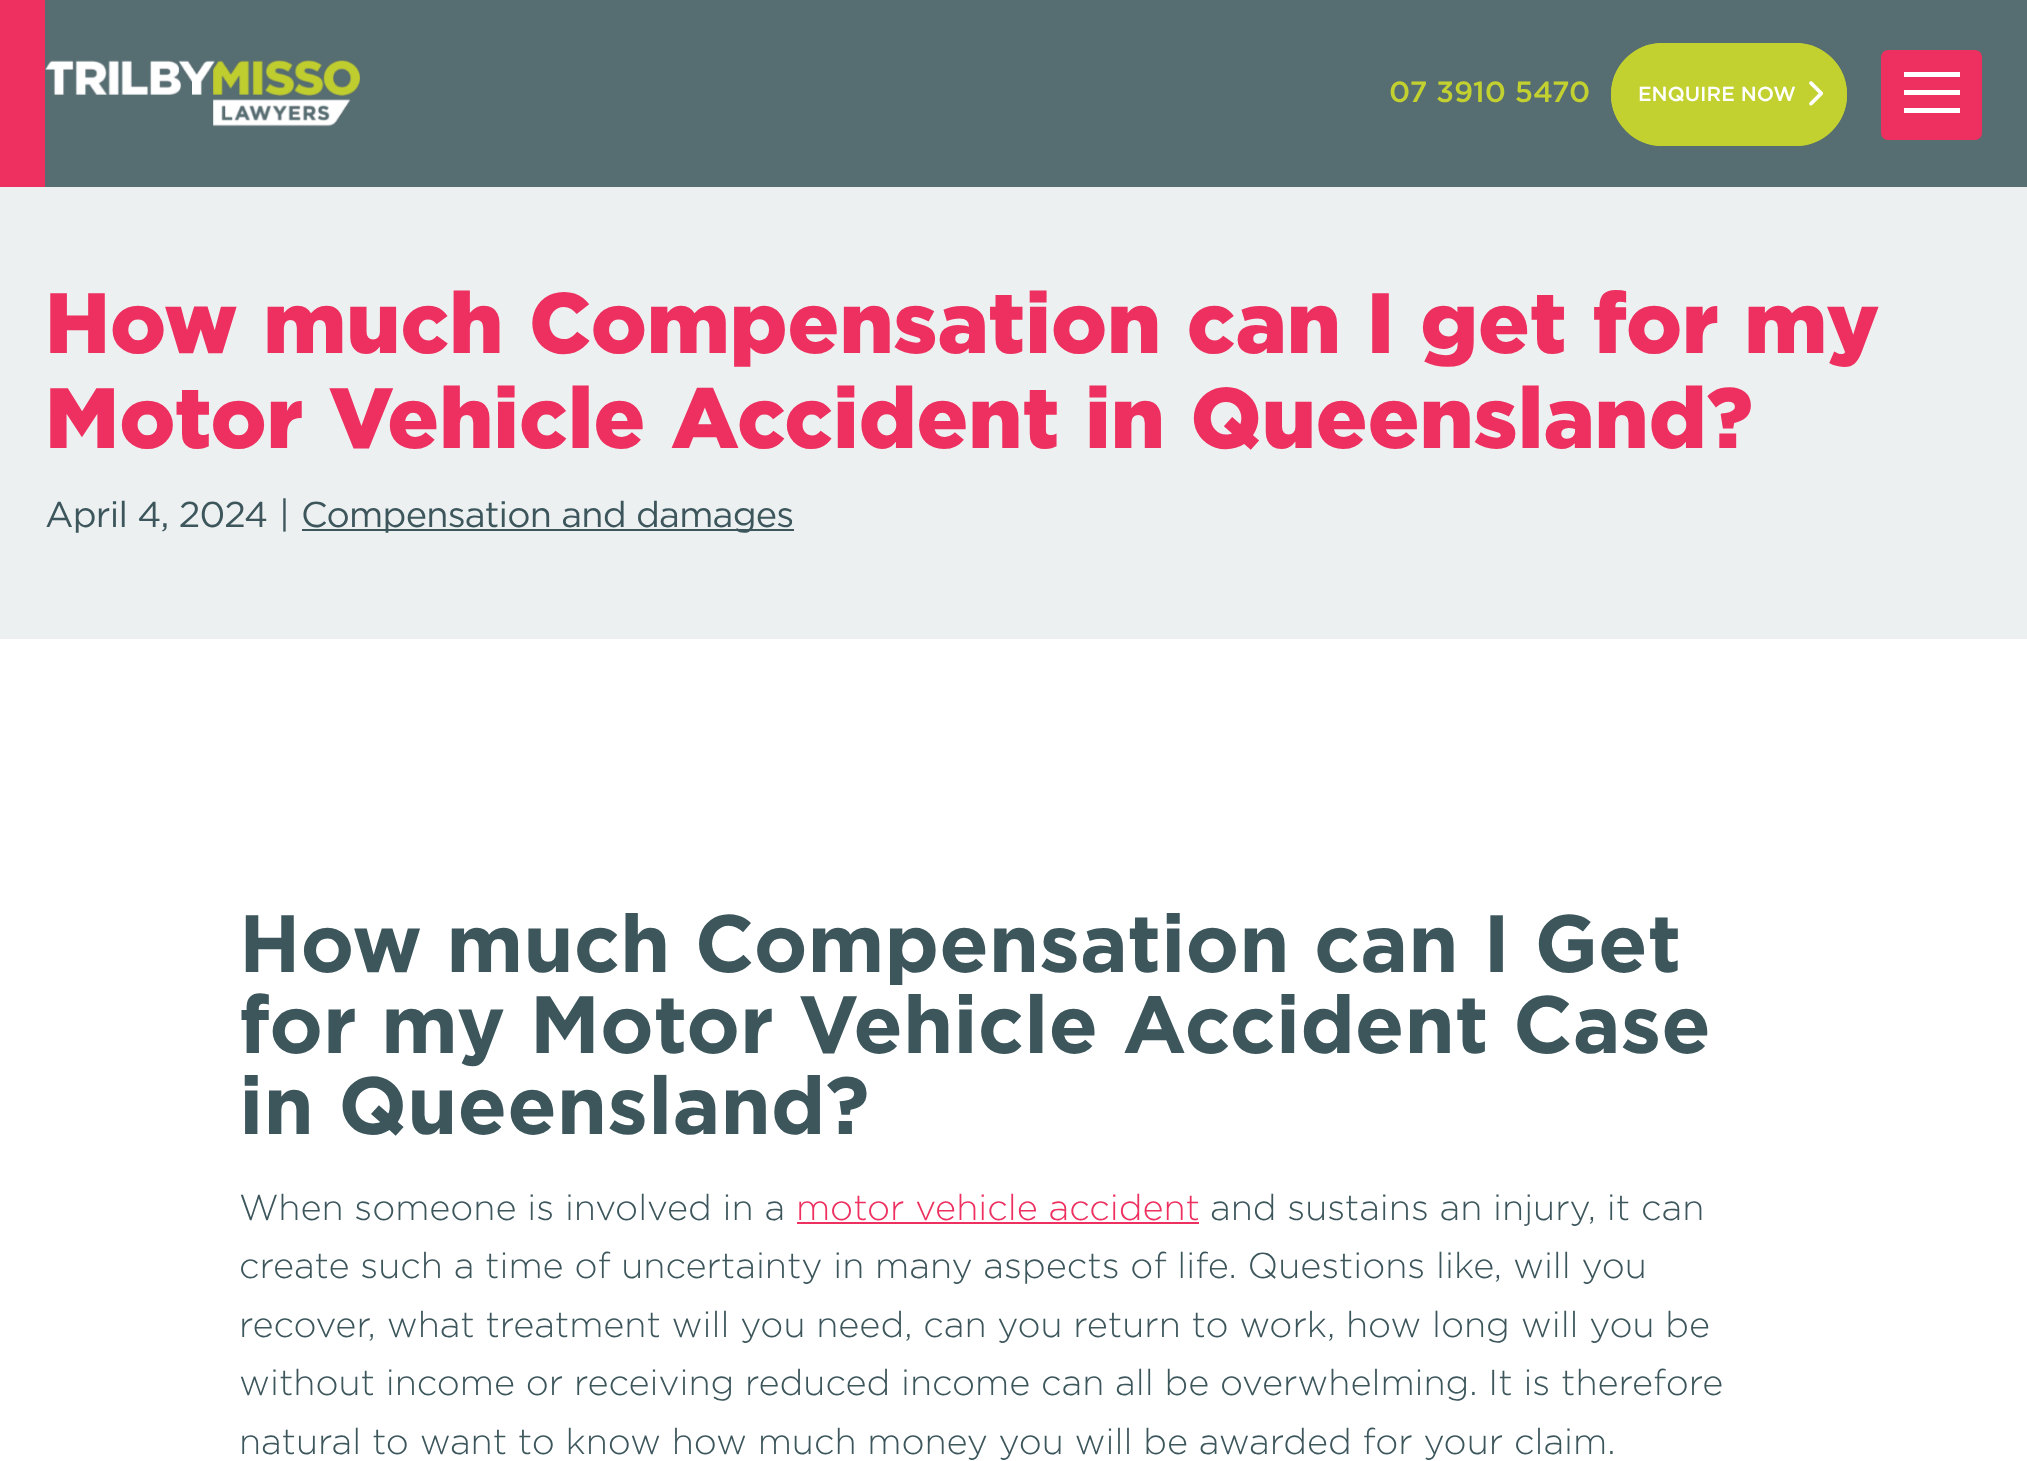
<svg xmlns="http://www.w3.org/2000/svg" width="2027" height="1461">
<style>
.a{font:500 29.25px Gotham;fill:#c3d130}
.b{font:500 20.25px Gotham;fill:#fff}
.c{font:900 85.5px Gotham;fill:#ed305f}
.d{font:36px Gotham;letter-spacing:-0.75px;fill:#3c565c}
.e{font:bold 81px Gotham;fill:#3c565c}
.f{font:300 36px Gotham;fill:#3c565c}
.g{font:300 36px Gotham;fill:#ed305f}
</style>
<rect width="100%" height="100%" fill="#fff"/>
<path fill="#566d72" d="M45 0h1982v187H45z"/>
<path fill="#ed305f" d="M0 0h45v187H0z"/>
<image href="1.png" x="45" y="60" width="315" height="67"/>
<rect fill="#c3d130" x="1611" y="43" width="236" height="103" rx="51.5"/>
<image href="2.png" x="1809" y="81" width="15" height="25"/>
<rect fill="none" stroke="#c3d130" stroke-width="5" x="1613.5" y="45.5" width="231" height="98" rx="49"/>
<rect fill="#ed305f" x="1881" y="50" width="101" height="90" rx="7"/>
<path fill="#fff" d="M1904 72h56v5H1904z"/>
<path fill="#fff" d="M1904 90h56v5H1904z"/>
<path fill="#fff" d="M1904 108h56v5H1904z"/>
<path fill="#edf0f1" d="M0 187h2027v452H0z"/>
<path fill="#3c565c" d="M302 529h492v2H302z"/>
<path fill="#ed305f" d="M797 1222h402v2H797z"/>
<text class="a" x="1389" y="102">07 3910 5470</text>
<text class="b" x="1638" y="101">ENQUIRE NOW</text>
<text class="c" x="45" y="353">How much Compensation can I get for my</text>
<text class="c" x="45" y="448">Motor Vehicle Accident in Queensland?</text>
<text class="d" x="45" y="527">April 4, 2024</text>
<text class="d" x="279" y="527">|</text>
<text class="d" x="301" y="527">Compensation and damages</text>
<text class="e" x="239" y="972">How much Compensation can I Get</text>
<text class="e" x="239" y="1053">for my Motor Vehicle Accident Case</text>
<text class="e" x="239" y="1134">in Queensland?</text>
<text class="f" x="239" y="1220">When someone is involved in a</text>
<text class="g" x="796" y="1220">motor vehicle accident</text>
<text class="f" x="1210" y="1220">and sustains an injury, it can</text>
<text class="f" x="239" y="1278">create such a time of uncertainty in many aspects of life. Questions like, will you</text>
<text class="f" x="239" y="1337">recover, what treatment will you need, can you return to work, how long will you be</text>
<text class="f" x="239" y="1395">without income or receiving reduced income can all be overwhelming. It is therefore</text>
<text class="f" x="239" y="1454">natural to want to know how much money you will be awarded for your claim.</text>
</svg>
